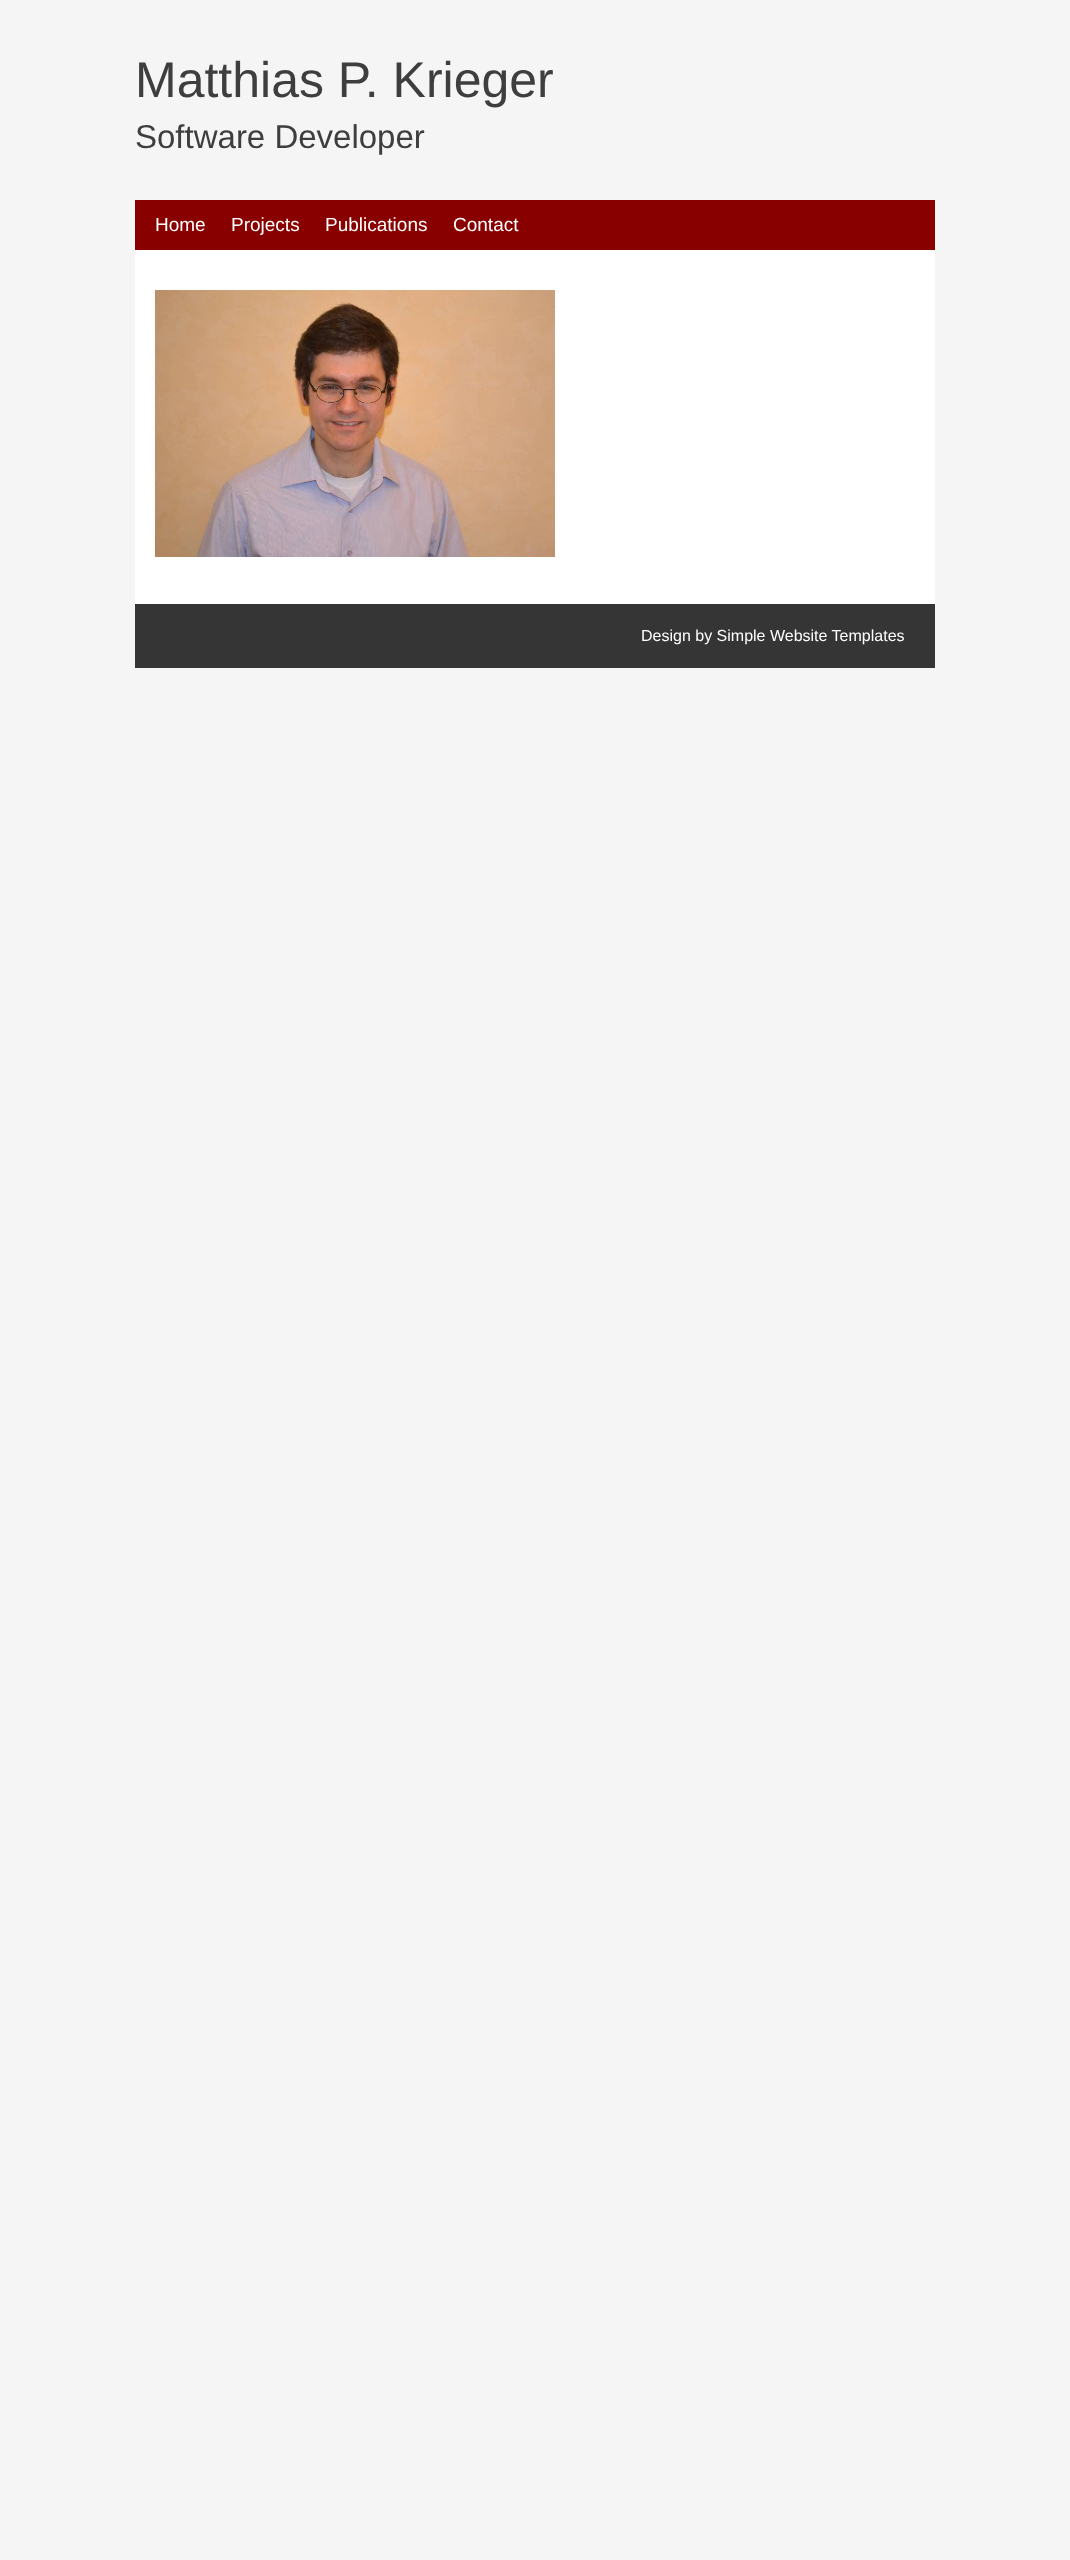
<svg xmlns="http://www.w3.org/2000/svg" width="1070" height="2560">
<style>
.a{font:50px Liberation Sans;fill:#3e3e3e}
.b{font:33px Liberation Sans;fill:#3e3e3e}
.c{font:19px Liberation Sans;fill:#fff}
.d{font:16px Liberation Sans;fill:#fff}
</style>
<rect width="100%" height="100%" fill="#f5f5f5"/>
<path fill="#800" d="M135 200h800v50H135z"/>
<path fill="#fff" d="M135 250h800v354H135z"/>
<image href="1.png" x="155" y="290" width="400" height="267"/>
<path fill="#353535" d="M135 604h800v64H135z"/>
<text class="a" x="135" y="97">Matthias P. Krieger</text>
<text class="b" x="135" y="148">Software Developer</text>
<text class="c" x="155" y="231">Home</text>
<text class="c" x="231" y="231">Projects</text>
<text class="c" x="325" y="231">Publications</text>
<text class="c" x="453" y="231">Contact</text>
<text class="d" x="641" y="641">Design by Simple Website Templates</text>
</svg>
